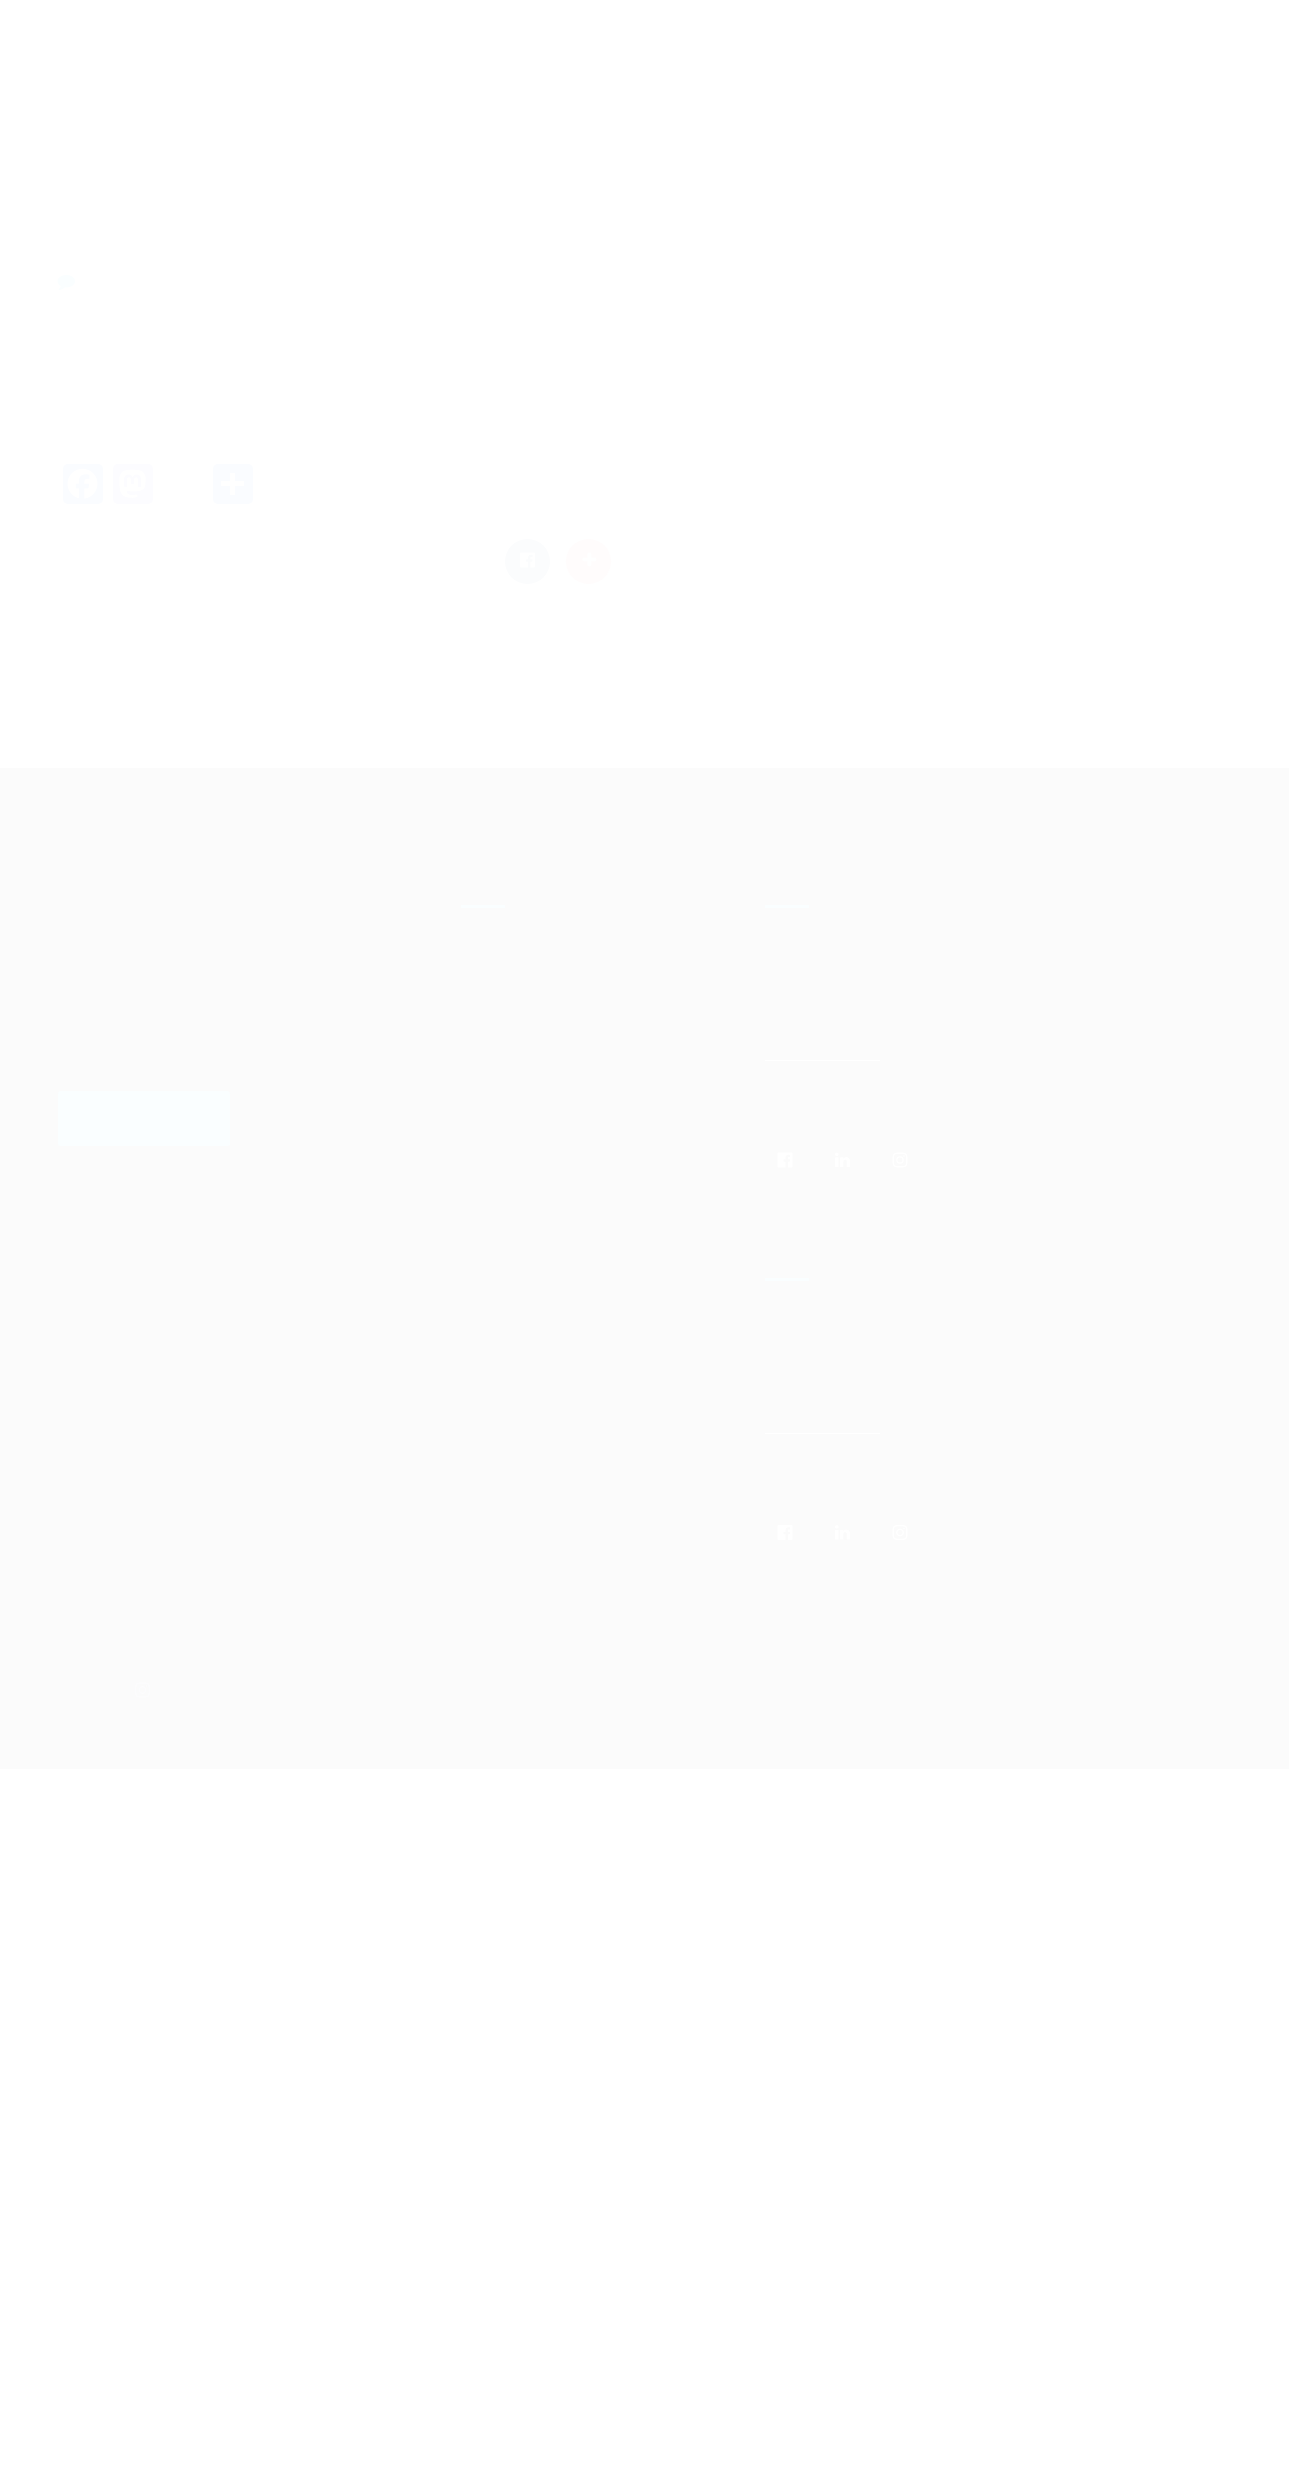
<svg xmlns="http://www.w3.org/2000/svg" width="1289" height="2480">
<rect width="100%" height="100%" fill="#fff"/>
<image href="1.png" x="57" y="275" width="18" height="15"/>
<rect fill="#fafcff" x="63" y="464" width="40" height="40" rx="5"/>
<image href="2.png" x="67" y="468" width="31" height="31"/>
<rect fill="#fcfcff" x="113" y="464" width="40" height="40" rx="5"/>
<image href="3.png" x="119" y="469" width="27" height="29"/>
<image href="4.png" x="168" y="474" width="29" height="19"/>
<rect fill="#fafcff" x="213" y="464" width="40" height="40" rx="5"/>
<path fill="#fff" d="M230 473h5v22H230z"/>
<path fill="#fff" d="M221 481h23v5H221z"/>
<circle fill="#fbfcfd" cx="527.5" cy="561.5" r="22.5"/>
<image href="5.png" x="520" y="552" width="15" height="16"/>
<circle fill="#fffcfc" cx="588.5" cy="561.5" r="22.5"/>
<image href="6.png" x="582" y="552" width="15" height="15"/>
<path fill="#fbfbfb" d="M0 768h1289v1000H0z"/>
<rect fill="#fafeff" x="58" y="1091" width="172" height="55" rx="2.5"/>
<path fill="#fafeff" d="M461 905h44v3H461z"/>
<path fill="#fafeff" d="M765 905h44v3H765z"/>
<path fill="#fff" d="M765 1060h115v1H765z"/>
<image href="7.png" x="777" y="1152" width="16" height="16"/>
<image href="8.png" x="835" y="1152" width="15" height="15"/>
<image href="9.png" x="892" y="1152" width="16" height="16"/>
<path fill="#fafeff" d="M765 1278h44v3H765z"/>
<path fill="#fff" d="M765 1433h115v1H765z"/>
<image href="10.png" x="777" y="1525" width="16" height="15"/>
<image href="11.png" x="835" y="1525" width="15" height="15"/>
<image href="12.png" x="892" y="1525" width="16" height="15"/>
<path fill="none" stroke="#fbfbfb" d="M-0.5 1610.5h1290v158H-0.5z"/>
<image href="13.png" x="135" y="1682" width="15" height="16"/>
</svg>
